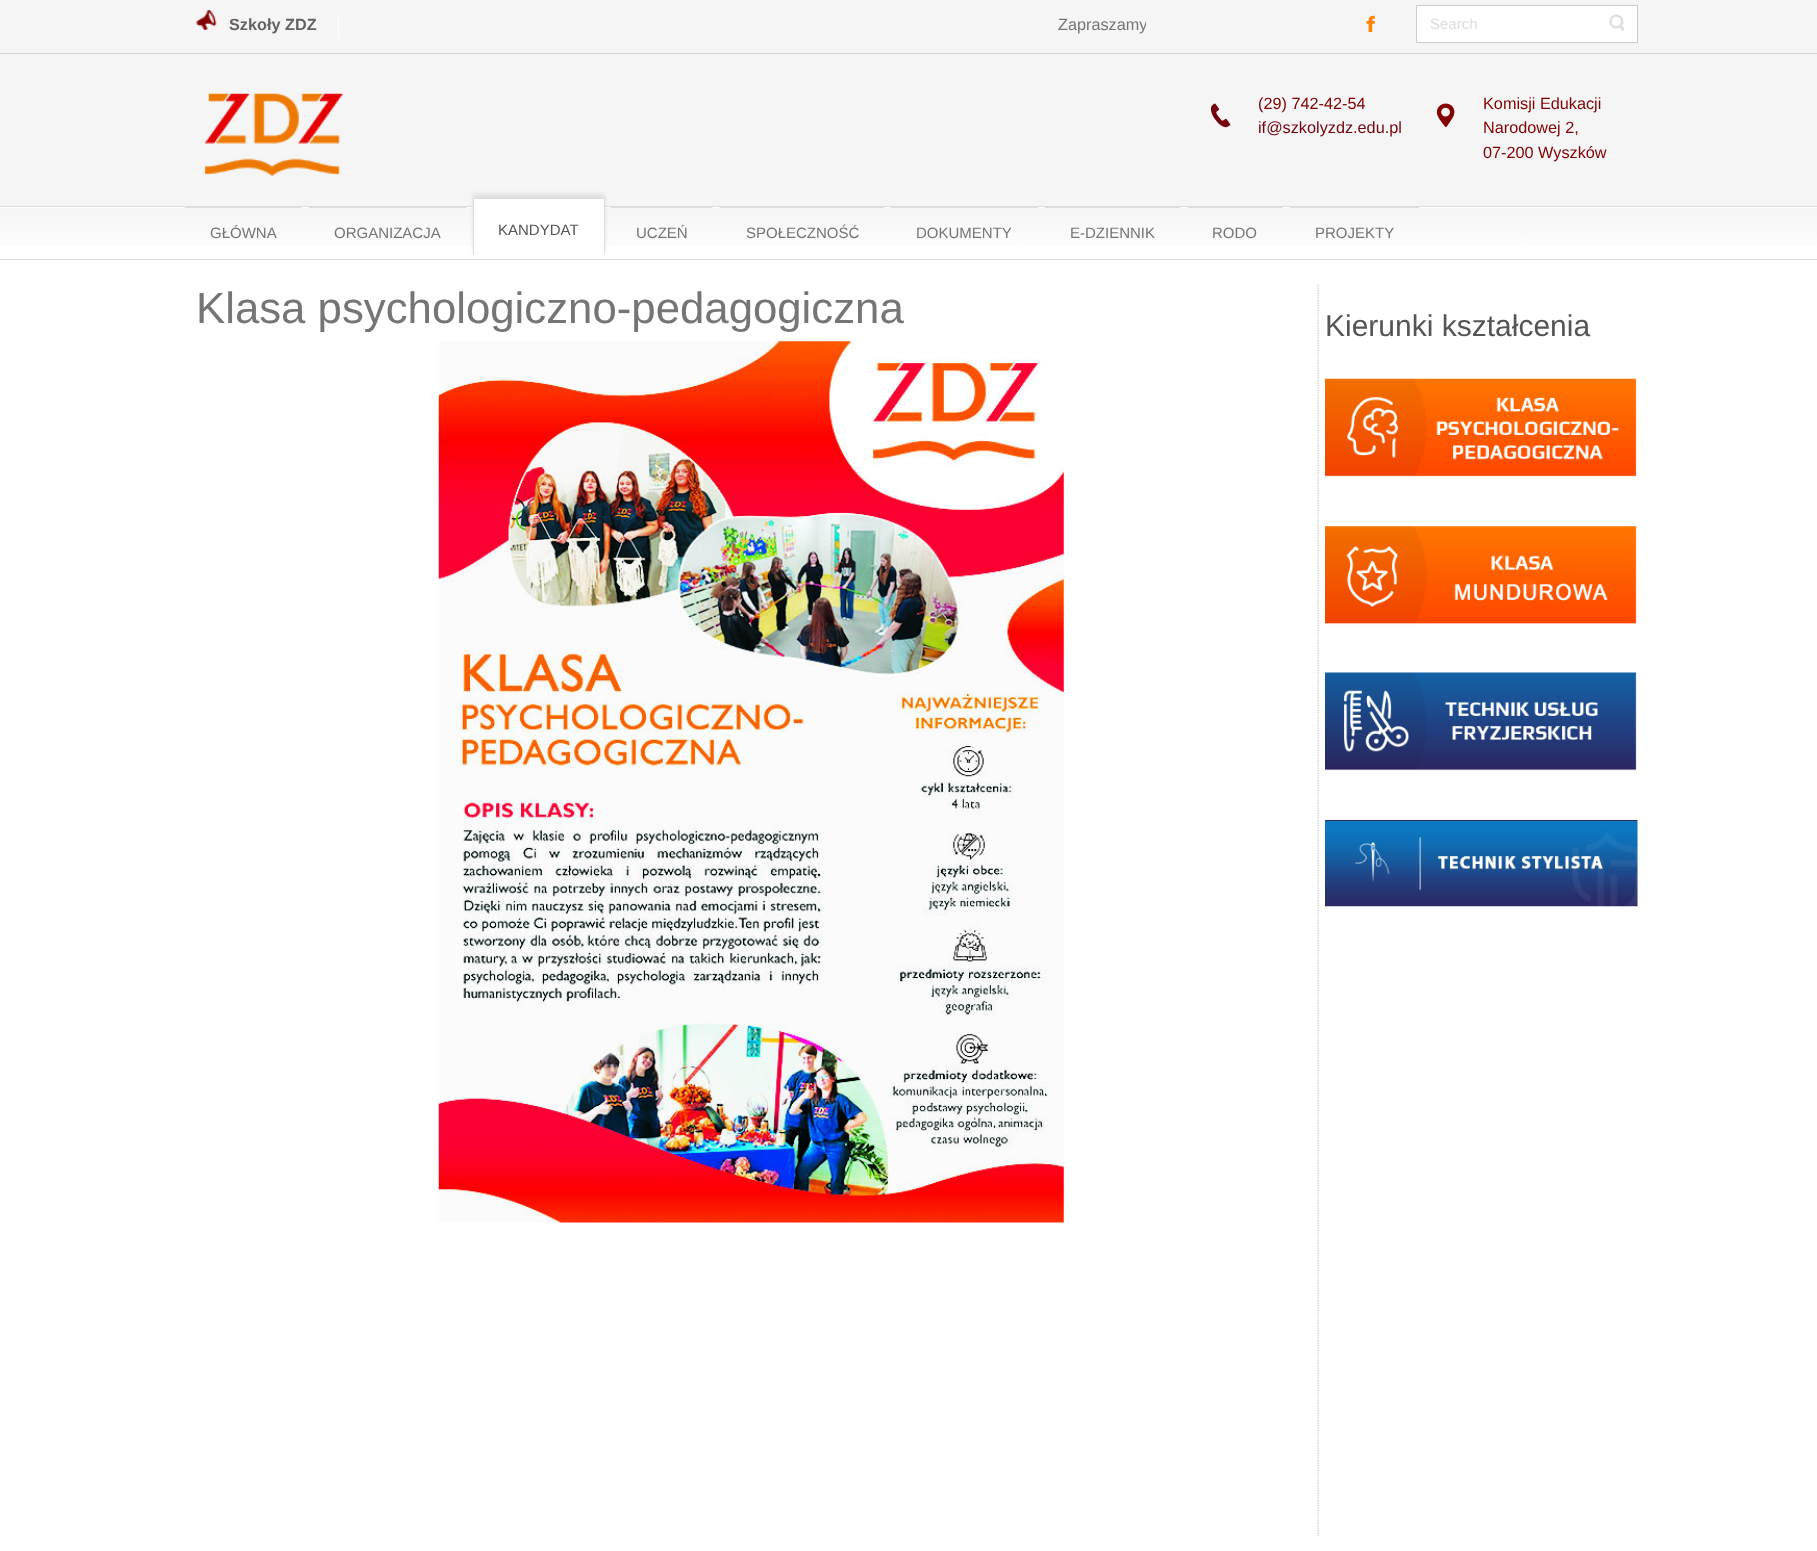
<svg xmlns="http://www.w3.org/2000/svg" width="1817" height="1551">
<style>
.a{font:bold 16.25px Liberation Sans;fill:#636363}
.b{font:16.25px Liberation Sans;fill:#767474}
.c{font:15px Liberation Sans;fill:#ddd}
.d{font:16.25px Liberation Sans;fill:#830000}
.e{font:16.25px Liberation Sans;fill:#74020b}
.f{font:15px Liberation Sans;fill:#767474}
.g{font:15px Liberation Sans;fill:#555}
.h{font:43.75px Liberation Sans;fill:#767474}
.i{font:30px Liberation Sans;fill:#555}
</style>
<defs>
<linearGradient id="g1" gradientUnits="userSpaceOnUse" x1="909" y1="259" x2="909" y2="208"><stop offset="0" stop-color="#fff"/><stop offset="0.99" stop-color="#f5f5f5"/></linearGradient>
<clipPath id="clip1"><path d="M370 14h776v24H370z"/></clipPath>
</defs>
<rect width="100%" height="100%" fill="#fff"/>
<path fill="#f5f5f5" d="M0 0h1817v53H0z"/>
<path fill="#d6d6d6" d="M0 53h1817v1H0z"/>
<image href="1.png" x="196" y="10" width="21" height="20"/>
<path fill="#fff" d="M338 14h1v24H338z"/>
<image href="2.png" x="1366" y="15" width="9" height="17"/>
<path fill="#fff" stroke="#ccc" d="M1416.5 5.5h221v37H1416.5z"/>
<image href="3.png" x="1609" y="14" width="16" height="17"/>
<path fill="#f5f5f5" d="M0 54h1817v152H0z"/>
<image href="4.png" x="204" y="93" width="139" height="84"/>
<image href="5.png" x="1210" y="103" width="21" height="25"/>
<image href="6.png" x="1436" y="103" width="19" height="25"/>
<path fill="url(#g1)" d="M0 208h1817v38H0z"/>
<path fill="#ddd" d="M0 206h1817v1H0z"/>
<path fill="#ddd" d="M0 259h1817v1H0z"/>
<path fill="#ddd" d="M184 206h118l-1 2h-116z"/>
<path fill="#ddd" d="M308 206h160l-2 2h-157z"/>
<path fill="#3333331c" filter="blur(2px)" d="M473 194h132v57H473z"/>
<path fill="#fff" d="M474 199h130v55H474z"/>
<path fill="#ddd" d="M473 198h132v1H473z"/>
<path fill="#ddd" d="M604 198h1v57H604z"/>
<path fill="#fff" d="M604 254h1v1H604z"/>
<path fill="#ddd" d="M473 198h1v57H473z"/>
<path fill="#ddd" d="M610 206h104l-2 2h-101z"/>
<path fill="#ddd" d="M719 206h166l-1 2h-164z"/>
<path fill="#ddd" d="M890 206h149l-1 2h-147z"/>
<path fill="#ddd" d="M1044 206h137l-1 2h-135z"/>
<path fill="#ddd" d="M1186 206h98l-2 2h-94z"/>
<path fill="#ddd" d="M1289 206h131l-1 2h-129z"/>
<image href="7.png" x="438" y="341" width="626" height="882"/>
<path fill="none" stroke="#c7c7c7" stroke-width="1.2" stroke-dasharray="1.25 1.25" d="M1318 285v1251"/>
<image href="8.png" x="1325" y="378" width="312" height="99"/>
<image href="9.png" x="1325" y="526" width="312" height="99"/>
<image href="10.png" x="1325" y="672" width="312" height="99"/>
<image href="11.png" x="1325" y="820" width="313" height="87"/>
<text class="a" x="229" y="30">Szkoły ZDZ</text>
<g clip-path="url(#clip1)">
<text class="b" x="1058" y="30">Zapraszamy</text>
</g>
<text class="c" x="1430" y="29">Search</text>
<text class="d" x="1258" y="109">(29) 742-42-54</text>
<text class="e" x="1258" y="133">if@szkolyzdz.edu.pl</text>
<text class="d" x="1483" y="109">Komisji Edukacji</text>
<text class="d" x="1483" y="133">Narodowej 2,</text>
<text class="d" x="1483" y="158">07-200 Wyszków</text>
<text class="f" x="210" y="238">GŁÓWNA</text>
<text class="f" x="334" y="238">ORGANIZACJA</text>
<text class="g" x="498" y="235">KANDYDAT</text>
<text class="f" x="636" y="238">UCZEŃ</text>
<text class="f" x="746" y="238">SPOŁECZNOŚĆ</text>
<text class="f" x="916" y="238">DOKUMENTY</text>
<text class="f" x="1070" y="238">E-DZIENNIK</text>
<text class="f" x="1212" y="238">RODO</text>
<text class="f" x="1315" y="238">PROJEKTY</text>
<text class="h" x="196" y="323">Klasa psychologiczno-pedagogiczna</text>
<text class="i" x="1325" y="336">Kierunki kształcenia</text>
</svg>
